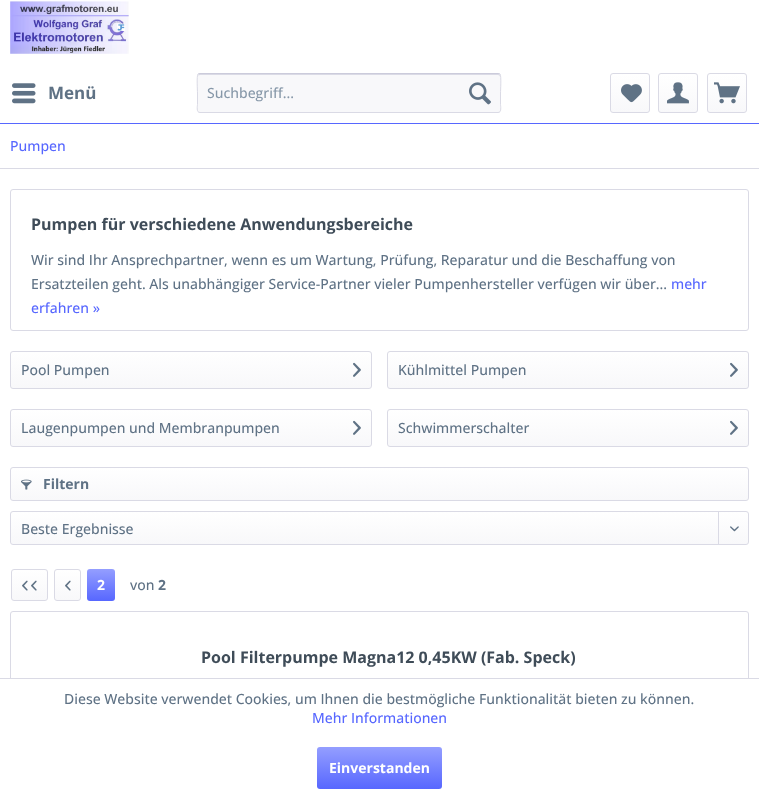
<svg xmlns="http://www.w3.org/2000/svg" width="759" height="799">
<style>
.a{font:bold 17px Open Sans;fill:#5f7285}
.b{font:500 14px Open Sans;fill:#8798a9}
.c{font:500 14px Open Sans;fill:#5767ff}
.d{font:bold 16px Open Sans;fill:#3f4c58}
.e{font:500 14px Open Sans;fill:#5f7285}
.f{font:bold 14px Open Sans;fill:#5f7285}
.g{font:bold 14px Open Sans;fill:#fff}
</style>
<defs>
<linearGradient id="g1" gradientUnits="userSpaceOnUse" x1="630" y1="74" x2="630" y2="112"><stop offset="0" stop-color="#fff"/><stop offset="1" stop-color="#f8f8fa"/></linearGradient>
<linearGradient id="g2" gradientUnits="userSpaceOnUse" x1="678" y1="74" x2="678" y2="112"><stop offset="0" stop-color="#fff"/><stop offset="1" stop-color="#f8f8fa"/></linearGradient>
<linearGradient id="g3" gradientUnits="userSpaceOnUse" x1="727" y1="74" x2="727" y2="112"><stop offset="0" stop-color="#fff"/><stop offset="1" stop-color="#f8f8fa"/></linearGradient>
<linearGradient id="g4" gradientUnits="userSpaceOnUse" x1="191" y1="352" x2="191" y2="388"><stop offset="0" stop-color="#fff"/><stop offset="1" stop-color="#f8f8fa"/></linearGradient>
<linearGradient id="g5" gradientUnits="userSpaceOnUse" x1="568" y1="352" x2="568" y2="388"><stop offset="0" stop-color="#fff"/><stop offset="1" stop-color="#f8f8fa"/></linearGradient>
<linearGradient id="g6" gradientUnits="userSpaceOnUse" x1="191" y1="410" x2="191" y2="446"><stop offset="0" stop-color="#fff"/><stop offset="1" stop-color="#f8f8fa"/></linearGradient>
<linearGradient id="g7" gradientUnits="userSpaceOnUse" x1="568" y1="410" x2="568" y2="446"><stop offset="0" stop-color="#fff"/><stop offset="1" stop-color="#f8f8fa"/></linearGradient>
<linearGradient id="g8" gradientUnits="userSpaceOnUse" x1="380" y1="468" x2="380" y2="500"><stop offset="0" stop-color="#fff"/><stop offset="1" stop-color="#f8f8fa"/></linearGradient>
<linearGradient id="g9" gradientUnits="userSpaceOnUse" x1="380" y1="512" x2="380" y2="544"><stop offset="0" stop-color="#fff"/><stop offset="1" stop-color="#f8f8fa"/></linearGradient>
<linearGradient id="g10" gradientUnits="userSpaceOnUse" x1="29" y1="570" x2="30" y2="600"><stop offset="0" stop-color="#fff"/><stop offset="1" stop-color="#f8f8fa"/></linearGradient>
<linearGradient id="g11" gradientUnits="userSpaceOnUse" x1="68" y1="570" x2="68" y2="600"><stop offset="0" stop-color="#fff"/><stop offset="1" stop-color="#f8f8fa"/></linearGradient>
<linearGradient id="g12" gradientUnits="userSpaceOnUse" x1="101" y1="569" x2="101" y2="601"><stop offset="0" stop-color="#949eff"/><stop offset="1" stop-color="#5767ff"/></linearGradient>
<linearGradient id="g13" gradientUnits="userSpaceOnUse" x1="380" y1="747" x2="380" y2="789"><stop offset="0" stop-color="#949eff"/><stop offset="1" stop-color="#5767ff"/></linearGradient>
</defs>
<rect width="100%" height="100%" fill="#fff"/>
<path fill="#5767ff" d="M0 123h759v1H0z"/>
<image href="1.png" x="10" y="1" width="119" height="53"/>
<image href="2.png" x="12" y="83" width="24" height="21"/>
<rect fill="#f8f8fa" x="197" y="73" width="304" height="40" rx="3"/>
<path fill="#dadae5" d="M200 75h298c1 0 2 1 2 2c0-1 0-3-2-3h-299l-1 3c0-1 1-2 2-2z"/>
<path fill="none" stroke="#cbcbdb" d="M198 74l2-.5h298l2 .5"/>
<path fill="none" stroke="#dadae5" d="M500 74c1.5 2 .5 16 .5 19v11.5c0 1.5 1.5 8-2.5 8h-298c-4 0-2.5-6.5-2.5-8v-11.5c0-3-1-17 .5-19"/>
<image href="3.png" x="469" y="82" width="22" height="23"/>
<rect fill="url(#g1)" x="611" y="74" width="38" height="38" rx="2"/>
<rect fill="none" stroke="#dadae5" x="610.5" y="73.5" width="39" height="39" rx="2.5"/>
<image href="4.png" x="621" y="84" width="21" height="19"/>
<rect fill="url(#g2)" x="659" y="74" width="38" height="38" rx="2"/>
<rect fill="none" stroke="#dadae5" x="658.5" y="73.5" width="39" height="39" rx="2.5"/>
<image href="5.png" x="667" y="82" width="22" height="22"/>
<rect fill="url(#g3)" x="708" y="74" width="38" height="38" rx="2"/>
<rect fill="none" stroke="#dadae5" x="707.5" y="73.5" width="39" height="39" rx="2.5"/>
<image href="6.png" x="714" y="82" width="26" height="22"/>
<path fill="#dadae5" d="M0 168h759v1H0z"/>
<rect fill="none" stroke="#dadae5" x="10.5" y="189.5" width="738" height="141" rx="2.5"/>
<rect fill="url(#g4)" x="11" y="352" width="360" height="36" rx="2"/>
<rect fill="none" stroke="#dadae5" x="10.5" y="351.5" width="361" height="37" rx="2.5"/>
<image href="7.png" x="353" y="362" width="8" height="15"/>
<rect fill="url(#g5)" x="388" y="352" width="360" height="36" rx="2"/>
<rect fill="none" stroke="#dadae5" x="387.5" y="351.5" width="361" height="37" rx="2.5"/>
<image href="7.png" x="730" y="362" width="8" height="15"/>
<rect fill="url(#g6)" x="11" y="410" width="360" height="36" rx="2"/>
<rect fill="none" stroke="#dadae5" x="10.5" y="409.5" width="361" height="37" rx="2.5"/>
<image href="7.png" x="353" y="420" width="8" height="15"/>
<rect fill="url(#g7)" x="388" y="410" width="360" height="36" rx="2"/>
<rect fill="none" stroke="#dadae5" x="387.5" y="409.5" width="361" height="37" rx="2.5"/>
<image href="7.png" x="730" y="420" width="8" height="15"/>
<rect fill="url(#g8)" x="11" y="468" width="737" height="32" rx="2"/>
<rect fill="none" stroke="#dadae5" x="10.5" y="467.5" width="738" height="33" rx="2.5"/>
<image href="8.png" x="21" y="479" width="11" height="11"/>
<rect fill="url(#g9)" x="11" y="512" width="737" height="32" rx="2"/>
<rect fill="none" stroke="#dadae5" x="10.5" y="511.5" width="738" height="33" rx="2.5"/>
<path fill="#dadae5" d="M718 512h1v33H718z"/>
<image href="9.png" x="730" y="526" width="9" height="6"/>
<rect fill="url(#g10)" x="12" y="570" width="35" height="30" rx="2"/>
<rect fill="none" stroke="#dadae5" x="11.5" y="569.5" width="36" height="31" rx="2.5"/>
<image href="10.png" x="22" y="580" width="6" height="11"/>
<image href="11.png" x="31" y="580" width="6" height="11"/>
<rect fill="url(#g11)" x="55" y="570" width="25" height="30" rx="2"/>
<rect fill="none" stroke="#dadae5" x="54.5" y="569.5" width="26" height="31" rx="2.5"/>
<image href="12.png" x="65" y="580" width="6" height="11"/>
<rect fill="url(#g12)" x="87" y="569" width="28" height="32" rx="3"/>
<rect fill="none" stroke="#dadae5" x="10.5" y="611.5" width="738" height="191" rx="2.5"/>
<path fill="#fff" d="M10 679h739v120H10z"/>
<path fill="#dadae5" d="M0 678h759v1H0z"/>
<rect fill="url(#g13)" x="317" y="747" width="125" height="42" rx="3"/>
<text class="a" x="48" y="99">Menü</text>
<text class="b" x="207" y="98">Suchbegriff...</text>
<text class="c" x="10" y="151">Pumpen</text>
<text class="d" x="31" y="230">Pumpen für verschiedene Anwendungsbereiche</text>
<text class="e" x="31" y="265">Wir sind Ihr Ansprechpartner, wenn es um Wartung, Prüfung, Reparatur und die Beschaffung von</text>
<text class="e" x="31" y="289">Ersatzteilen geht. Als unabhängiger Service-Partner vieler Pumpenhersteller verfügen wir über...</text>
<text class="c" x="671" y="289">mehr</text>
<text class="c" x="31" y="313">erfahren »</text>
<text class="e" x="21" y="375">Pool Pumpen</text>
<text class="e" x="398" y="375">Kühlmittel Pumpen</text>
<text class="e" x="21" y="433">Laugenpumpen und Membranpumpen</text>
<text class="e" x="398" y="433">Schwimmerschalter</text>
<text class="f" x="43" y="489">Filtern</text>
<text class="e" x="21" y="534">Beste Ergebnisse</text>
<text class="g" x="97" y="590">2</text>
<text class="e" x="130" y="590">von</text>
<text class="f" x="158" y="590">2</text>
<text class="d" x="201" y="663">Pool Filterpumpe Magna12 0,45KW (Fab. Speck)</text>
<text class="e" x="64" y="704">Diese Website verwendet Cookies, um Ihnen die bestmögliche Funktionalität bieten zu können.</text>
<text class="c" x="312" y="723">Mehr Informationen</text>
<text class="g" x="329" y="773">Einverstanden</text>
</svg>
